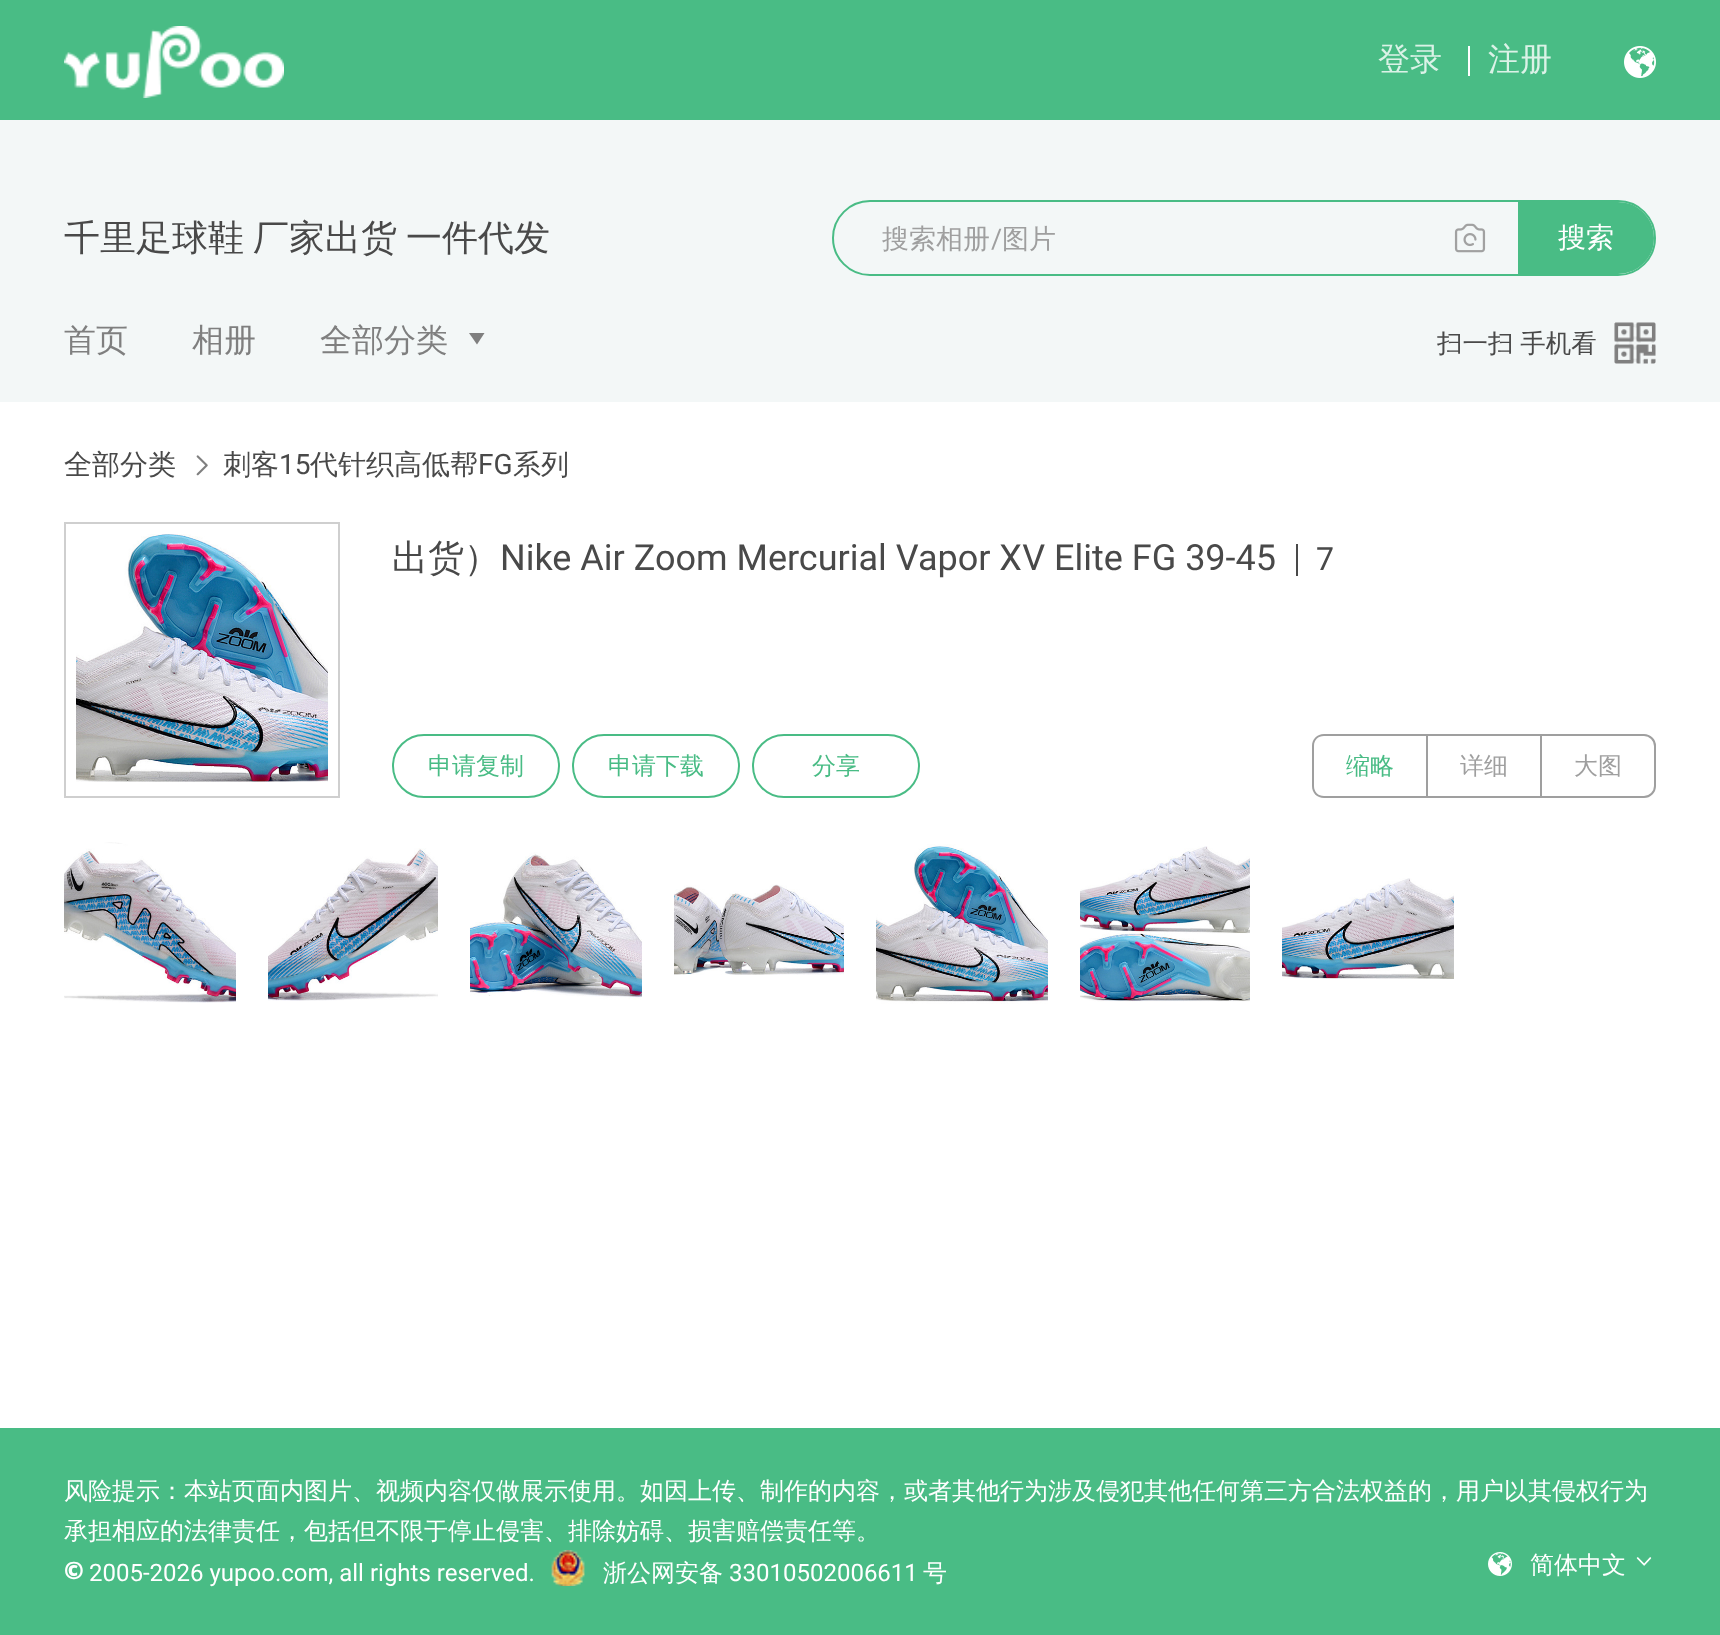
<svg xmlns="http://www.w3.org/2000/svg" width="1720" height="1635">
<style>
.a{font:500 32px WenQuanYi Zen Hei;fill:#dbf2e7}
.b{font:500 36px WenQuanYi Zen Hei;fill:#494949}
.c{font:500 27px WenQuanYi Zen Hei;fill:#9f9f9f}
.d{font:27px Roboto;fill:#9f9f9f}
.e{font:28px Noto Sans;fill:#fff}
.f{font:500 28px WenQuanYi Zen Hei;fill:#fff}
.g{font:500 32px WenQuanYi Zen Hei;fill:#7f7f7f}
.h{font:500 25.5px WenQuanYi Zen Hei;fill:#494949}
.i{font:500 28px WenQuanYi Zen Hei;fill:#494949}
.j{font:28px Roboto;fill:#494949}
.k{font:36px Roboto;fill:#494949}
.l{font:32px Roboto;fill:#494949}
.m{font:500 24px WenQuanYi Zen Hei;fill:#49bc85}
.n{font:500 24px WenQuanYi Zen Hei;fill:#9f9f9f}
.o{font:24px Noto Sans;fill:#fff}
.p{font:500 24px WenQuanYi Zen Hei;fill:#fff}
.q{font:900 24px Noto Sans;fill:#fff}
.r{font:24px Roboto;fill:#fff}
</style>
<rect width="100%" height="100%" fill="#fff"/>
<path fill="#49bc85" d="M0 0h1720v120H0z"/>
<image href="1.png" x="64" y="26" width="220" height="72"/>
<path fill="#fff" d="M1468 46h2v30H1468z"/>
<image href="2.png" x="1624" y="46" width="32" height="32"/>
<path fill="#f3f7f7" d="M0 120h1720v282H0z"/>
<rect fill="none" stroke="#49bc85" stroke-width="2" x="833" y="201" width="822" height="74" rx="37"/>
<image href="3.png" x="1454" y="223" width="32" height="30"/>
<path fill="#49bc85" stroke="#49bc85" stroke-width="2" d="M1519 203h99c19.5 0 35 15.5 35 35c0 19.5-15.5 35-35 35h-99z"/>
<path fill="#7f7f7f" d="M477 344.5l-8-11.5h15.5z"/>
<image href="4.png" x="1614" y="322" width="42" height="42"/>
<image href="5.png" x="196" y="455" width="12" height="21"/>
<path fill="none" stroke="#cfcfcf" stroke-width="2" d="M65 523h274v274H65z"/>
<image href="6.png" x="76" y="534" width="252" height="248"/>
<path fill="#494949" d="M1296 544h2v32H1296z"/>
<rect fill="none" stroke="#49bc85" stroke-width="2" x="393" y="735" width="166" height="62" rx="31"/>
<rect fill="none" stroke="#49bc85" stroke-width="2" x="573" y="735" width="166" height="62" rx="31"/>
<rect fill="none" stroke="#49bc85" stroke-width="2" x="753" y="735" width="166" height="62" rx="31"/>
<path fill="#9f9f9f" fill-rule="evenodd" d="M1324 734h102v64h-102c-7 0-12-5-12-12v-40c0-7 5-12 12-12zm0 2h102v60h-102c-6 0-10-4-10-10v-40c0-6 4-10 10-10z"/>
<path fill="#9f9f9f" d="M1426 734h114v2H1426z"/>
<path fill="#9f9f9f" d="M1426 796h114v2H1426z"/>
<path fill="#9f9f9f" d="M1426 734h2v64H1426z"/>
<path fill="none" stroke="#9f9f9f" stroke-width="2" d="M1541 735h103c6 0 11 5 11 11v40c0 6-5 11-11 11h-103z"/>
<image href="7.png" x="64" y="842" width="172" height="161"/>
<image href="8.png" x="268" y="848" width="170" height="153"/>
<image href="9.png" x="470" y="852" width="172" height="148"/>
<image href="10.png" x="674" y="884" width="170" height="91"/>
<image href="11.png" x="876" y="844" width="172" height="160"/>
<image href="12.png" x="1080" y="846" width="170" height="156"/>
<image href="13.png" x="1282" y="878" width="172" height="101"/>
<path fill="#49bc85" d="M0 1428h1720v207H0z"/>
<image href="14.png" x="551" y="1550" width="34" height="36"/>
<image href="15.png" x="1488" y="1552" width="24" height="24"/>
<image href="16.png" x="1636" y="1557" width="16" height="9"/>
<text class="a" x="1378" y="70">登录</text>
<text class="a" x="1488" y="70">注册</text>
<text class="b" x="64" y="250">千里足球鞋</text>
<text class="b" x="253" y="250">厂家出货</text>
<text class="b" x="406" y="250">一件代发</text>
<text class="c" x="882" y="248">搜索相册</text>
<text class="d" x="991" y="248">/</text>
<text class="c" x="1002" y="248">图片</text>
<text class="e" x="1558" y="247">搜</text>
<text class="f" x="1586" y="247">索</text>
<text class="g" x="64" y="351">首页</text>
<text class="g" x="192" y="351">相册</text>
<text class="g" x="320" y="351">全部分类</text>
<text class="h" x="1437" y="352" word-spacing="-1">扫一扫 手机看</text>
<text class="i" x="64" y="474">全部分类</text>
<text class="i" x="223" y="474">刺客</text>
<text class="j" x="279" y="474">15</text>
<text class="i" x="310" y="474">代针织高低帮</text>
<text class="j" x="478" y="474">FG</text>
<text class="i" x="513" y="474">系列</text>
<text class="b" x="392" y="570">出货）</text>
<text class="k" x="500" y="570">Nike Air Zoom Mercurial Vapor XV Elite FG 39-45</text>
<text class="l" x="1316" y="570">7</text>
<text class="m" x="428" y="774">申请复制</text>
<text class="m" x="608" y="774">申请下载</text>
<text class="m" x="812" y="774">分享</text>
<text class="m" x="1346" y="774">缩略</text>
<text class="n" x="1460" y="774">详细</text>
<text class="n" x="1574" y="774">大图</text>
<text class="o" x="64" y="1499">风</text>
<text class="p" x="88" y="1499">险提示：本站页面内图片、视频内容仅做展示使用。如因上传、制作的内容，或者其他行为涉及侵犯其他任何第三方合法权益的，用户以其侵权行为</text>
<text class="p" x="64" y="1539">承担相应的法律责任，包括但不限于停止侵害、排除妨碍、损害赔偿责任等。</text>
<text class="q" x="64" y="1579">©</text>
<text class="r" x="89" y="1581">2005-2026 yupoo.com, all rights reserved.</text>
<text class="p" x="603" y="1581">浙公网安备</text>
<text class="r" x="729" y="1581">33010502006611</text>
<text class="p" x="923" y="1581">号</text>
<text class="p" x="1530" y="1573">简体中文</text>
</svg>
